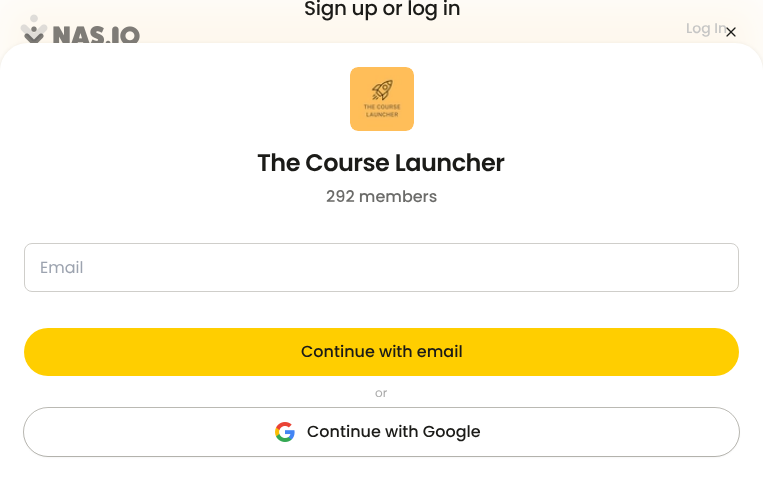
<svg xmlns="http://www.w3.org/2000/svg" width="763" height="480">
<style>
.a{font:500 20px Poppins;letter-spacing:-0.3px;fill:#1b1b18}
.b{font:600 24px Poppins;letter-spacing:-0.5px;fill:#1b1b18}
.c{font:500 16px Poppins;fill:#6b6b69}
.d{font:16px Poppins;fill:#9ca3af}
.e{font:500 16px Poppins;fill:#1b1b18}
.f{font:12px Poppins;fill:#aaa}
.g{font:500 14px Poppins;fill:#c6c6c5}
</style>
<defs>
<clipPath id="clip1"><path d="M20 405h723v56h-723zm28 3h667c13.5 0 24 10.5 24 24c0 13.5-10.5 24-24 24h-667c-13.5 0-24-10.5-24-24c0-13.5 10.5-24 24-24z" clip-rule="evenodd"/></clipPath>
</defs>
<rect width="100%" height="100%" fill="#fefefe"/>
<image href="5.png" x="0" y="0" width="763" height="71"/>
<image href="6.png" x="20" y="14" width="28" height="28"/>
<image href="3.png" x="24" y="26" width="116" height="17"/>
<rect fill="#1b1b181a" filter="blur(2px)" y="44" width="763" height="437" rx="28"/>
<path fill="#fff" d="M28 43h707c15.5 0 28 12.5 28 28v409h-763v-409c0-15.5 12.5-28 28-28z"/>
<image href="1.png" x="350" y="67" width="64" height="64"/>
<rect fill="none" stroke="#cfceca" x="24.5" y="243.5" width="714" height="48" rx="7.5"/>
<rect fill="#ffce00" x="24" y="328" width="715" height="48" rx="24"/>
<g clip-path="url(#clip1)">
<rect fill="#00000014" filter="blur(1px)" x="24" y="409" width="715" height="48" rx="24"/>
</g>
<rect fill="none" stroke="#1915014a" x="23.5" y="407.5" width="716" height="49" rx="24.5"/>
<image href="2.png" x="275" y="422" width="20" height="20"/>
<text class="a" x="304" y="15">Sign up or log in</text>
<text class="b" x="257" y="171">The Course Launcher</text>
<text class="c" x="326" y="202">292 members</text>
<text class="d" x="40" y="273">Email</text>
<text class="e" x="301" y="357">Continue with email</text>
<text class="f" x="375" y="397">or</text>
<text class="e" x="307" y="437">Continue with Google</text>
<text class="g" x="686" y="33">Log In</text>
<image href="4.png" x="726" y="27" width="10" height="10"/>
</svg>
